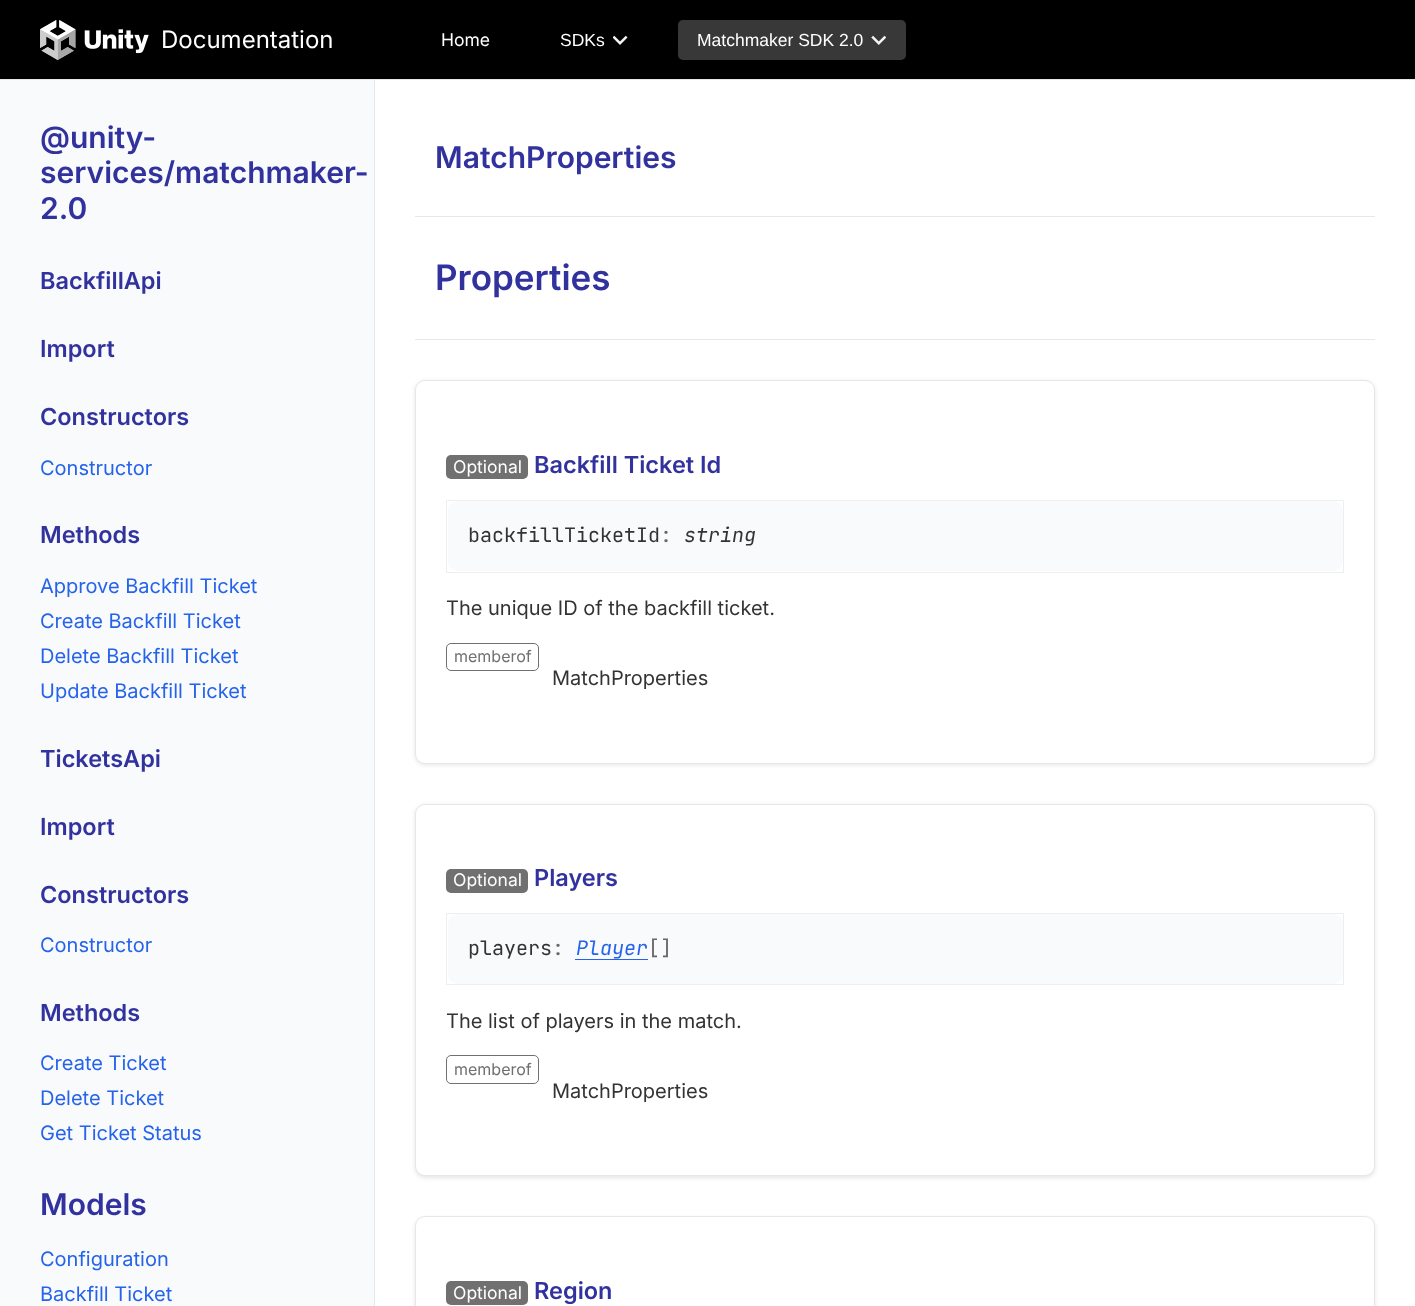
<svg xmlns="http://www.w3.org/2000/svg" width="1415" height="1306">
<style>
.a{font:24px Inter;fill:#fff}
.b{font:17.5px Inter;fill:#fff}
.c{font:17.5px Liberation Sans;fill:#fff}
.d{font:600 30px Inter;fill:#32329f}
.e{font:600 23.5px Inter;fill:#32329f}
.f{font:20px Inter;fill:#2563eb}
.g{font:600 35px Inter;fill:#32329f}
.h{font:20px JetBrains Mono;fill:#333}
.i{font:20px JetBrains Mono;fill:#666}
.j{font:italic 20px JetBrains Mono;fill:#333}
.k{font:20px Inter;fill:#333}
.l{font:16px Inter;fill:#707070}
.m{font:italic 20px JetBrains Mono;fill:#2563eb}
</style>
<rect width="100%" height="100%" fill="#fff"/>
<path fill="#000" d="M0 0h1415v79H0z"/>
<path fill="#e5e7eb" d="M0 79h1415v1H0z"/>
<image href="1.png" x="40" y="20" width="109" height="40"/>
<image href="2.png" x="613" y="35" width="15" height="10"/>
<rect fill="#383838" x="678" y="20" width="228" height="40" rx="5"/>
<image href="3.png" x="871" y="35" width="15" height="10"/>
<path fill="#f8fafc" d="M0 80h374v1226H0z"/>
<path fill="#e5e7eb" d="M374 80h1v1226H374z"/>
<path fill="#e5e7eb" d="M415 216h960v1H415z"/>
<path fill="#e5e7eb" d="M415 339h960v1H415z"/>
<rect fill="#0000001a" filter="blur(2px)" x="415" y="381" width="960" height="384" rx="10"/>
<rect fill="#fff" stroke="#e5e7eb" x="415.5" y="380.5" width="959" height="383" rx="9.5"/>
<rect fill="#707070" x="446" y="455" width="82" height="24" rx="5"/>
<path fill="none" stroke="#eee" d="M446.5 500.5h897v72H446.5z"/>
<rect fill="#f8fafc" x="448" y="501" width="895" height="70" rx="10"/>
<rect fill="none" stroke="#707070" x="446.5" y="643.5" width="92" height="27" rx="4.5"/>
<rect fill="#0000001a" filter="blur(2px)" x="415" y="805" width="960" height="373" rx="10"/>
<rect fill="#fff" stroke="#e5e7eb" x="415.5" y="804.5" width="959" height="371" rx="9.5"/>
<rect fill="#707070" x="446" y="869" width="82" height="24" rx="5"/>
<path fill="none" stroke="#eee" d="M446.5 913.5h897v71H446.5z"/>
<rect fill="#f8fafc" x="448" y="914" width="895" height="70" rx="10"/>
<path fill="#2563eb" d="M575 959h73v1H575z"/>
<rect fill="none" stroke="#707070" x="446.5" y="1055.5" width="92" height="28" rx="4.5"/>
<rect fill="#0000001a" filter="blur(2px)" x="415" y="1218" width="960" height="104" rx="10"/>
<rect fill="#fff" stroke="#e5e7eb" x="415.5" y="1216.5" width="959" height="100" rx="9.5"/>
<rect fill="#707070" x="446" y="1281" width="82" height="24" rx="5"/>
<text class="a" x="161" y="48">Documentation</text>
<text class="b" x="441" y="46">Home</text>
<text class="c" x="560" y="46">SDKs</text>
<text class="c" x="697" y="46">Matchmaker SDK 2.0</text>
<text class="d" x="40" y="148">@unity-</text>
<text class="d" x="40" y="183">services/matchmaker-</text>
<text class="d" x="40" y="219">2.0</text>
<text class="e" x="40" y="289">BackfillApi</text>
<text class="e" x="40" y="357">Import</text>
<text class="e" x="40" y="425">Constructors</text>
<text class="f" x="40" y="475">Constructor</text>
<text class="e" x="40" y="543">Methods</text>
<text class="f" x="40" y="593">Approve Backfill Ticket</text>
<text class="f" x="40" y="628">Create Backfill Ticket</text>
<text class="f" x="40" y="663">Delete Backfill Ticket</text>
<text class="f" x="40" y="698">Update Backfill Ticket</text>
<text class="e" x="40" y="767">TicketsApi</text>
<text class="e" x="40" y="835">Import</text>
<text class="e" x="40" y="903">Constructors</text>
<text class="f" x="40" y="952">Constructor</text>
<text class="e" x="40" y="1021">Methods</text>
<text class="f" x="40" y="1070">Create Ticket</text>
<text class="f" x="40" y="1105">Delete Ticket</text>
<text class="f" x="40" y="1140">Get Ticket Status</text>
<text class="d" x="40" y="1215">Models</text>
<text class="f" x="40" y="1266">Configuration</text>
<text class="f" x="40" y="1301">Backfill Ticket</text>
<text class="d" x="435" y="168">MatchProperties</text>
<text class="g" x="435" y="290">Properties</text>
<text class="b" x="453" y="473">Optional</text>
<text class="e" x="534" y="473">Backfill Ticket Id</text>
<text class="h" x="468" y="542">backfillTicketId</text>
<text class="i" x="660" y="542">:</text>
<text class="j" x="684" y="542">string</text>
<text class="k" x="446" y="615">The unique ID of the backfill ticket.</text>
<text class="l" x="454" y="662">memberof</text>
<text class="k" x="552" y="685">MatchProperties</text>
<text class="b" x="453" y="886">Optional</text>
<text class="e" x="534" y="886">Players</text>
<text class="h" x="468" y="955">players</text>
<text class="i" x="552" y="955">:</text>
<text class="m" x="576" y="955">Player</text>
<text class="i" x="648" y="955">[]</text>
<text class="k" x="446" y="1028">The list of players in the match.</text>
<text class="l" x="454" y="1075">memberof</text>
<text class="k" x="552" y="1098">MatchProperties</text>
<text class="b" x="453" y="1299">Optional</text>
<text class="e" x="534" y="1299">Region</text>
</svg>
